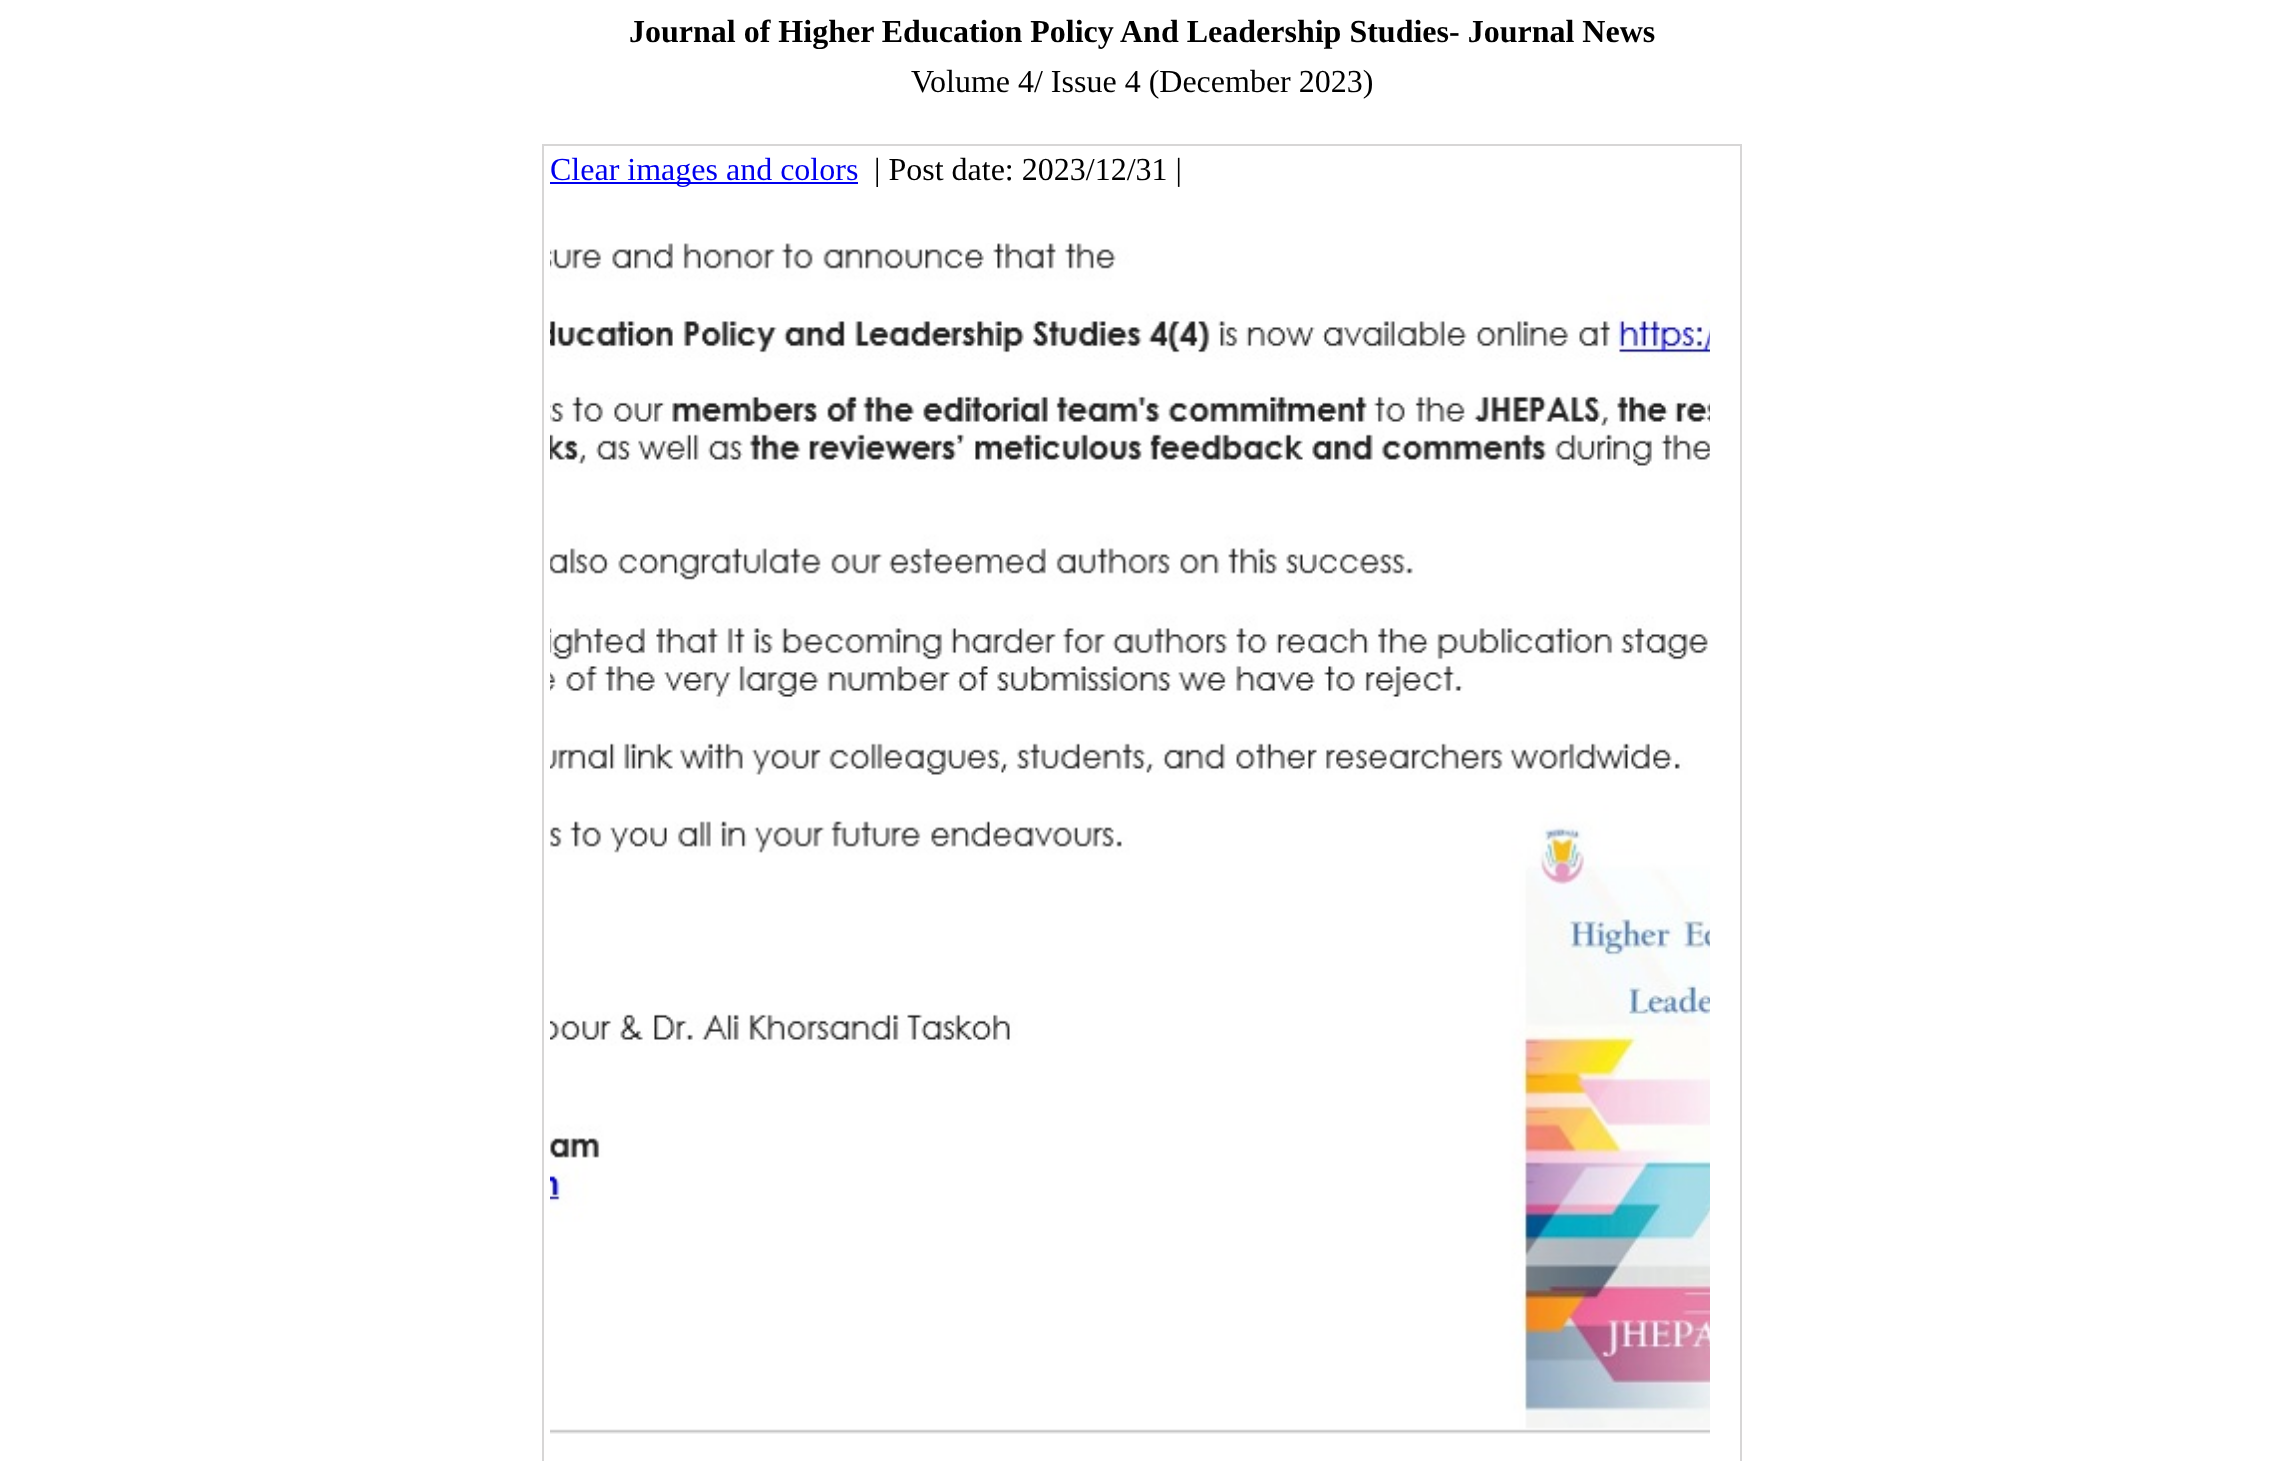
<svg xmlns="http://www.w3.org/2000/svg" width="2284" height="1461">
<style>
.a{font:bold 32px Liberation Serif;fill:#000}
.b{font:32px Liberation Serif;fill:#000}
.c{font:32px Liberation Serif;fill:#00e}
</style>
<rect width="100%" height="100%" fill="#fff"/>
<path fill="none" stroke="#d7d6d6" stroke-width="2" d="M543 145h1198v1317H543z"/>
<path fill="#00e" d="M550 182h308v2H550z"/>
<image href="1.png" x="550" y="243" width="1160" height="1191"/>
<text class="a" x="629" y="42">Journal of Higher Education Policy And Leadership Studies- Journal News</text>
<text class="b" x="911" y="92">Volume 4/ Issue 4 (December 2023)</text>
<text class="c" x="550" y="180">Clear images and colors</text>
<text class="b" x="874" y="180">| Post date: 2023/12/31 |</text>
</svg>
